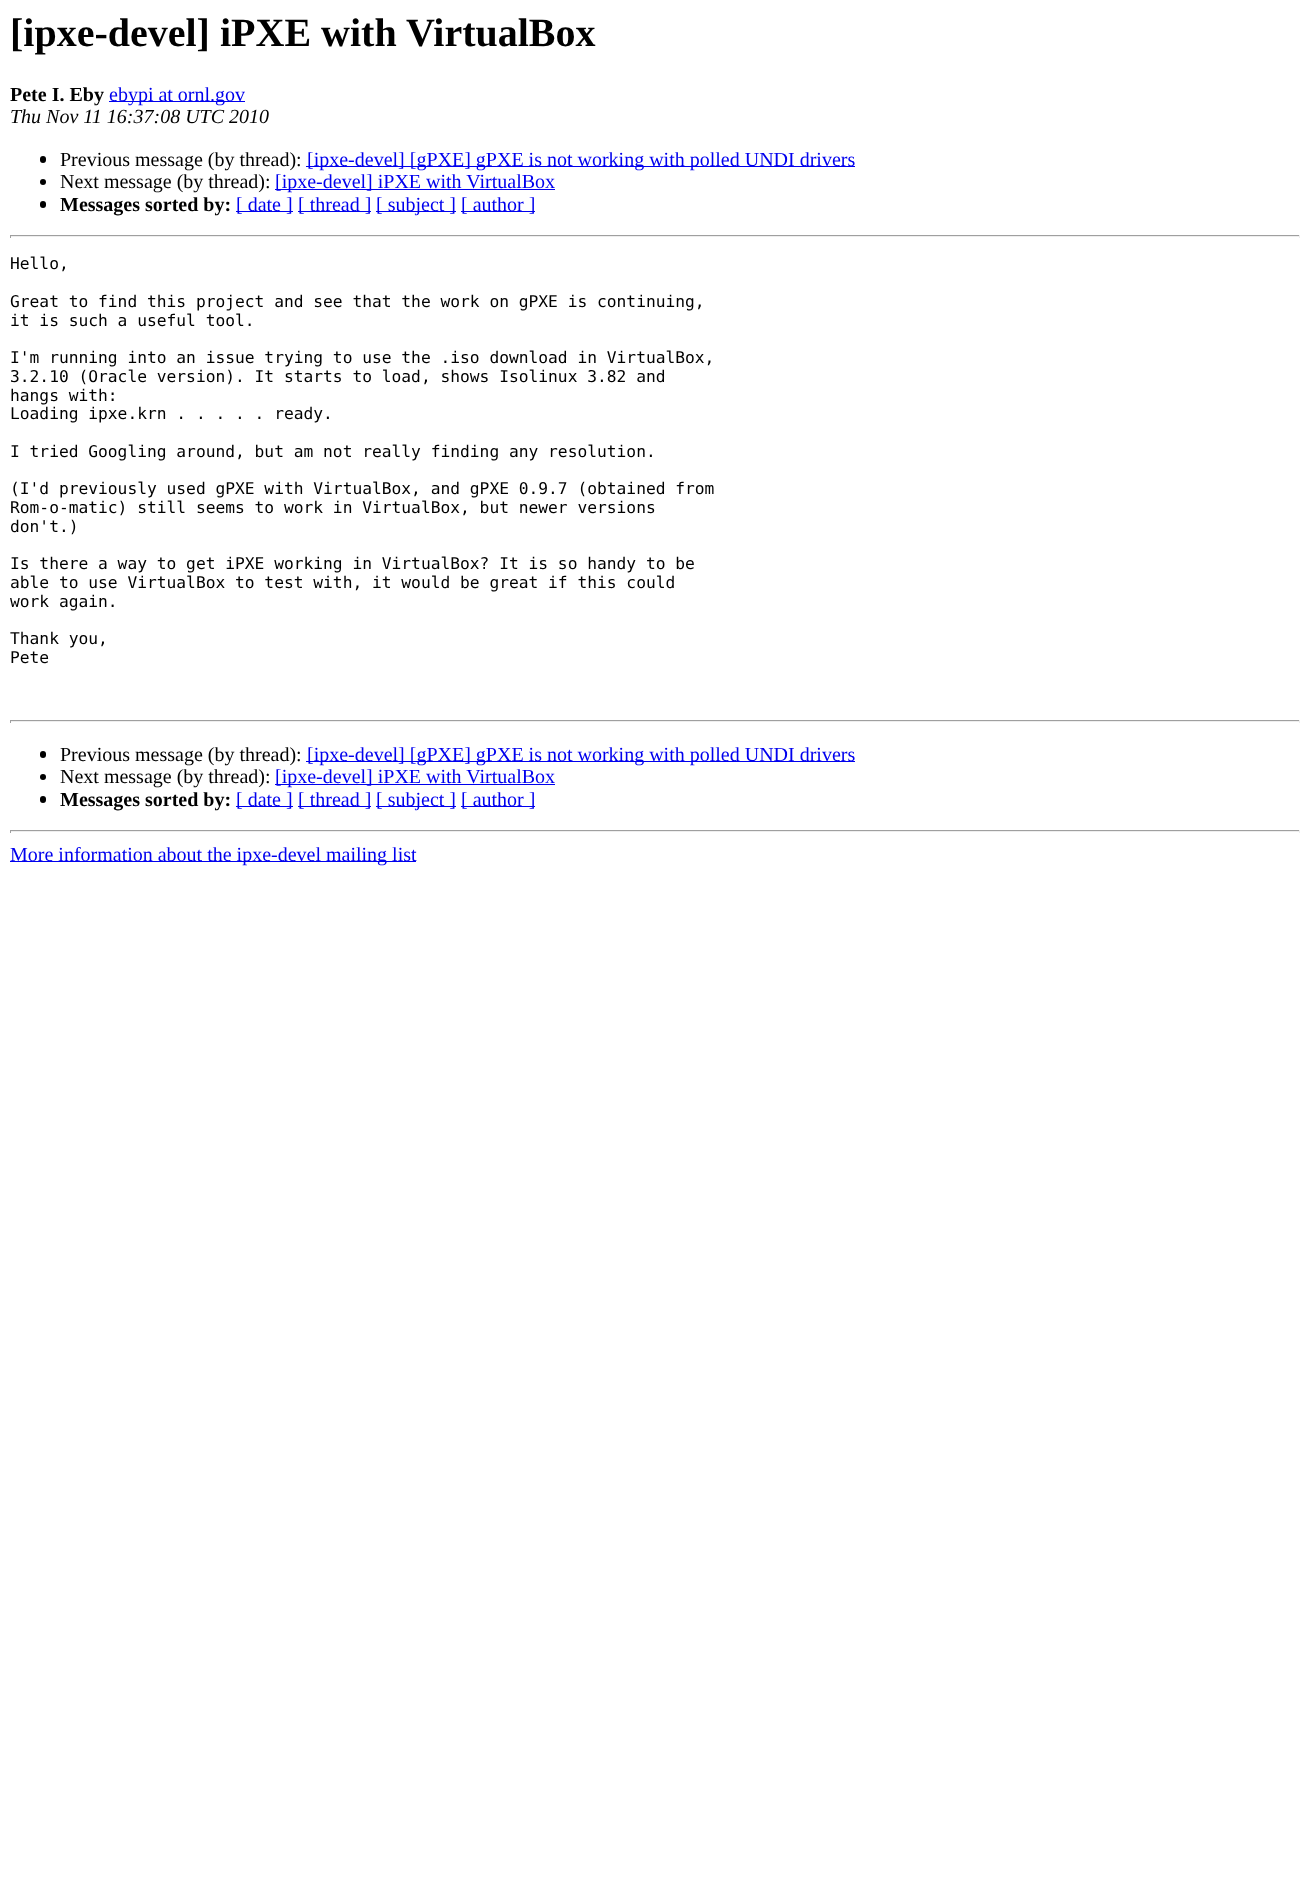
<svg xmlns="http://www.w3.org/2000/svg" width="1310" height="1899">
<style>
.a{font:bold 40px Liberation Serif;fill:#000}
.b{font:bold 20px Liberation Serif;fill:#000}
.c{font:20px Liberation Serif;fill:#00e}
.d{font:italic 20px Liberation Serif;fill:#000}
.e{font:20px Liberation Serif;fill:#000}
.f{font:16.25px DejaVu Sans Mono;fill:#000}
</style>
<rect width="100%" height="100%" fill="#fff"/>
<path fill="#00e" d="M109 101h136v1H109z"/>
<rect fill="#000" x="40" y="156" width="6" height="7" rx="3"/>
<path fill="#00e" d="M306 166h549v1H306z"/>
<circle fill="#000" cx="43" cy="182" r="3"/>
<path fill="#00e" d="M275 189h280v1H275z"/>
<rect fill="#000" x="40" y="201" width="6" height="7" rx="3"/>
<path fill="#00e" d="M236 211h57v1H236z"/>
<path fill="#00e" d="M298 211h73v1H298z"/>
<path fill="#00e" d="M376 211h80v1H376z"/>
<path fill="#00e" d="M461 211h74v1H461z"/>
<path fill="#9f9f9f" d="M10 235h1290v1H10z"/>
<path fill="#eee" d="M1299 235h1v3H1299z"/>
<path fill="#eee" d="M10 236h1290v1H10z"/>
<path fill="#9f9f9f" d="M10 235h1v3H10z"/>
<path fill="#9f9f9f" d="M10 720h1290v1H10z"/>
<path fill="#eee" d="M1299 720h1v3H1299z"/>
<path fill="#eee" d="M10 721h1290v1H10z"/>
<path fill="#9f9f9f" d="M10 720h1v3H10z"/>
<rect fill="#000" x="40" y="751" width="6" height="7" rx="3"/>
<path fill="#00e" d="M306 761h549v1H306z"/>
<circle fill="#000" cx="43" cy="777" r="3"/>
<path fill="#00e" d="M275 784h280v1H275z"/>
<rect fill="#000" x="40" y="796" width="6" height="7" rx="3"/>
<path fill="#00e" d="M236 806h57v1H236z"/>
<path fill="#00e" d="M298 806h73v1H298z"/>
<path fill="#00e" d="M376 806h80v1H376z"/>
<path fill="#00e" d="M461 806h74v1H461z"/>
<path fill="#9f9f9f" d="M10 830h1290v1H10z"/>
<path fill="#eee" d="M1299 830h1v3H1299z"/>
<path fill="#eee" d="M10 831h1290v1H10z"/>
<path fill="#9f9f9f" d="M10 830h1v3H10z"/>
<path fill="#00e" d="M10 861h406v1H10z"/>
<text class="a" x="10" y="46">[ipxe-devel] iPXE with VirtualBox</text>
<text class="b" x="10" y="101">Pete I. Eby</text>
<text class="c" x="109" y="101">ebypi at ornl.gov</text>
<text class="d" x="10" y="123">Thu Nov 11 16:37:08 UTC 2010</text>
<text class="e" x="60" y="166">Previous message (by thread):</text>
<text class="c" x="307" y="166">[ipxe-devel] [gPXE] gPXE is not working with polled UNDI drivers</text>
<text class="e" x="60" y="188">Next message (by thread):</text>
<text class="c" x="275" y="188">[ipxe-devel] iPXE with VirtualBox</text>
<text class="b" x="60" y="211">Messages sorted by:</text>
<text class="c" x="236" y="211">[ date ]</text>
<text class="c" x="298" y="211">[ thread ]</text>
<text class="c" x="376" y="211">[ subject ]</text>
<text class="c" x="461" y="211">[ author ]</text>
<text class="f" x="10" y="269">Hello,</text>
<text class="f" x="10" y="307">Great to find this project and see that the work on gPXE is continuing,</text>
<text class="f" x="10" y="326">it is such a useful tool.</text>
<text class="f" x="10" y="363">I'm running into an issue trying to use the .iso download in VirtualBox,</text>
<text class="f" x="10" y="382">3.2.10 (Oracle version). It starts to load, shows Isolinux 3.82 and</text>
<text class="f" x="10" y="401">hangs with:</text>
<text class="f" x="10" y="419">Loading ipxe.krn . . . . . ready.</text>
<text class="f" x="10" y="457">I tried Googling around, but am not really finding any resolution.</text>
<text class="f" x="10" y="494">(I'd previously used gPXE with VirtualBox, and gPXE 0.9.7 (obtained from</text>
<text class="f" x="10" y="513">Rom-o-matic) still seems to work in VirtualBox, but newer versions</text>
<text class="f" x="10" y="532">don't.)</text>
<text class="f" x="10" y="569">Is there a way to get iPXE working in VirtualBox? It is so handy to be</text>
<text class="f" x="10" y="588">able to use VirtualBox to test with, it would be great if this could</text>
<text class="f" x="10" y="607">work again.</text>
<text class="f" x="10" y="644">Thank you,</text>
<text class="f" x="10" y="663">Pete</text>
<text class="e" x="60" y="761">Previous message (by thread):</text>
<text class="c" x="307" y="761">[ipxe-devel] [gPXE] gPXE is not working with polled UNDI drivers</text>
<text class="e" x="60" y="783">Next message (by thread):</text>
<text class="c" x="275" y="783">[ipxe-devel] iPXE with VirtualBox</text>
<text class="b" x="60" y="806">Messages sorted by:</text>
<text class="c" x="236" y="806">[ date ]</text>
<text class="c" x="298" y="806">[ thread ]</text>
<text class="c" x="376" y="806">[ subject ]</text>
<text class="c" x="461" y="806">[ author ]</text>
<text class="c" x="10" y="861">More information about the ipxe-devel mailing list</text>
</svg>
